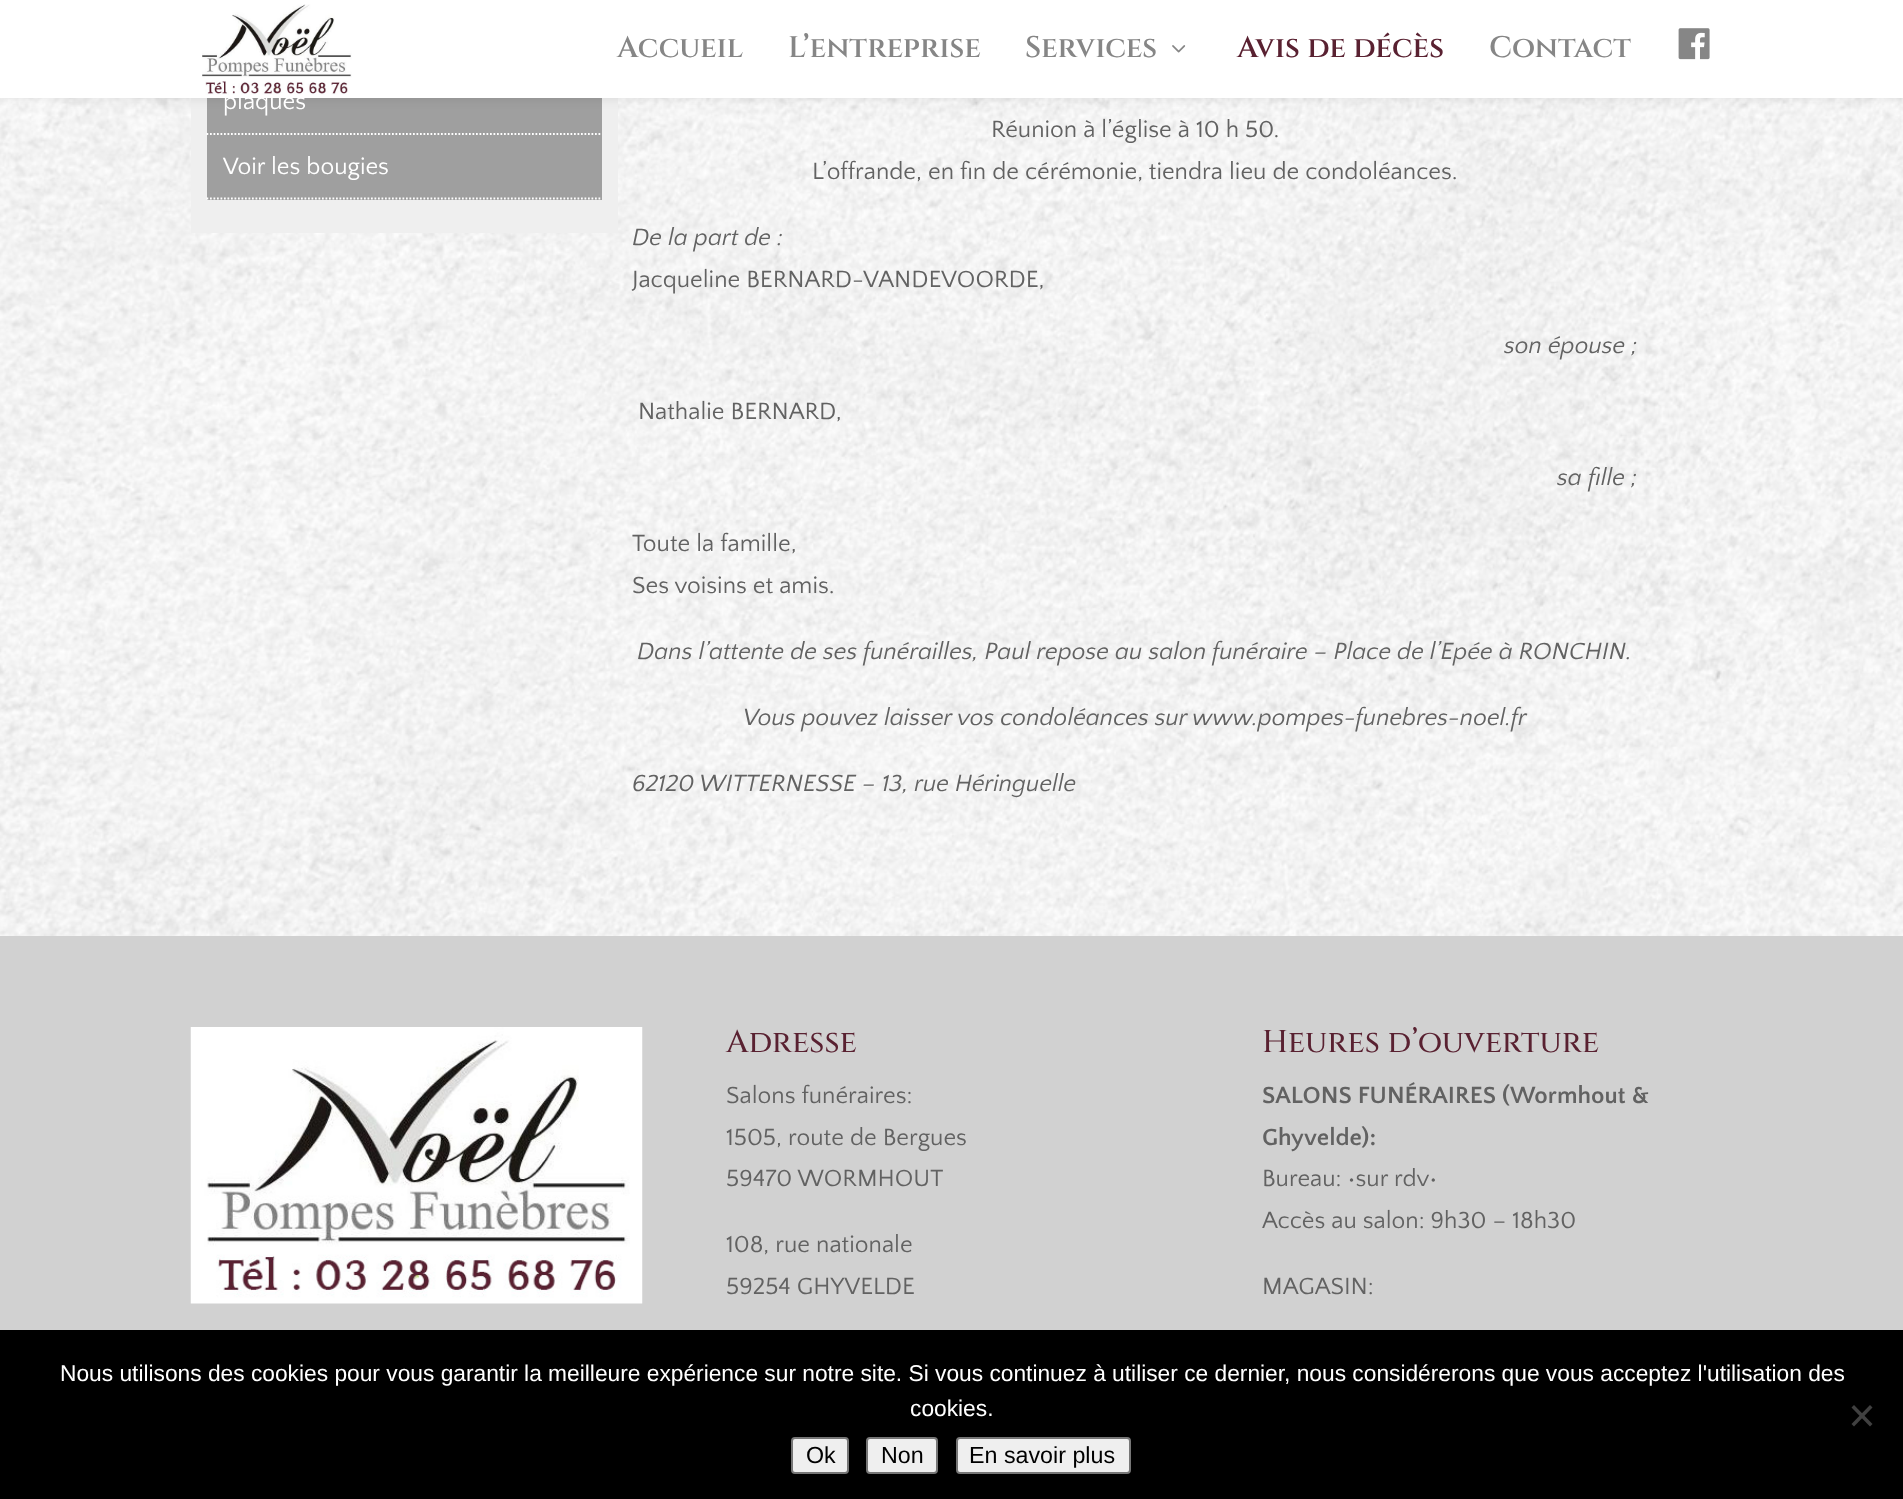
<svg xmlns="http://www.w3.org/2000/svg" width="1903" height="1499">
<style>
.a{font:600 29.75px Cinzel;fill:#868686}
.b{font:600 29.75px Cinzel;fill:#592131}
.c{font:24.5px Quattrocento Sans;fill:#fff}
.d{font:24.5px Quattrocento Sans;fill:#626262}
.e{font:italic 24.5px Quattrocento Sans;fill:#626262}
.f{font:500 31.5px Cinzel;fill:#592131}
.g{font:bold 24.5px Quattrocento Sans;fill:#626262}
.h{font:22.75px Liberation Sans;fill:#fff}
.i{font:23.25px Liberation Sans;fill:#000}
</style>
<rect width="100%" height="100%" fill="#d1d1d1"/>
<image href="4.png" x="0" y="98" width="1903" height="838"/>
<path fill="#efefef" d="M191 98h427v135H191z"/>
<path fill="#9f9f9f" d="M207 98h395v102H207z"/>
<path fill="#0000001a" filter="blur(6px)" d="M0 0h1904v98H0z"/>
<path fill="#fff" d="M0 0h1903v98H0z"/>
<image href="2.png" x="1172" y="45" width="14" height="8"/>
<image href="3.png" x="1678" y="28" width="32" height="32"/>
<path fill="none" stroke="#fff" stroke-width="1.8" stroke-dasharray="1.75 1.75" d="M206.5 134h395.5"/>
<path fill="none" stroke="#fff" stroke-width="1.8" stroke-dasharray="1.75 1.75" d="M206.5 198.5h395.5"/>
<image href="5.png" x="190" y="1027" width="453" height="277"/>
<path fill="#000" d="M0 1330h1903v169H0z"/>
<path fill="#404040" d="M1870 1405l2.5 2.5l-18.5 19l-2.5-2.5z"/>
<path fill="#404040" d="M1851.5 1407.5l2.5-2.5l18.5 19l-2.5 2.5z"/>
<rect fill="#efefef" stroke="#767676" stroke-width="2" x="792" y="1438" width="56" height="35" rx="3"/>
<rect fill="#efefef" stroke="#767676" stroke-width="2" x="867" y="1438" width="70" height="35" rx="3"/>
<rect fill="#efefef" stroke="#767676" stroke-width="2" x="957" y="1438" width="173" height="35" rx="3"/>
<text class="a" x="617" y="57">Accueil</text>
<text class="a" x="788" y="57">L’entreprise</text>
<text class="a" x="1025" y="57">Services</text>
<text class="b" x="1237" y="57">Avis de décès</text>
<text class="a" x="1489" y="57">Contact</text>
<text class="c" x="223" y="109">plaques</text>
<image href="1.png" x="202" y="4" width="150" height="91"/>
<text class="c" x="223" y="174">Voir les bougies</text>
<text class="d" x="991" y="137">Réunion à l’église à 10 h 50.</text>
<text class="d" x="812" y="179">L’offrande, en fin de cérémonie, tiendra lieu de condoléances.</text>
<text class="e" x="632" y="245">De la part de :</text>
<text class="d" x="632" y="287">Jacqueline BERNARD-VANDEVOORDE,</text>
<text class="e" x="1504" y="353">son épouse ;</text>
<text class="d" x="638" y="419">Nathalie BERNARD,</text>
<text class="e" x="1557" y="485">sa fille ;</text>
<text class="d" x="632" y="551">Toute la famille,</text>
<text class="d" x="632" y="593">Ses voisins et amis.</text>
<text class="e" x="637" y="659">Dans l’attente de ses funérailles, Paul repose au salon funéraire – Place de l’Epée à RONCHIN.</text>
<text class="e" x="743" y="725">Vous pouvez laisser vos condoléances sur www.pompes-funebres-noel.fr</text>
<text class="e" x="632" y="791">62120 WITTERNESSE – 13, rue Héringuelle</text>
<text class="f" x="726" y="1052">Adresse</text>
<text class="d" x="726" y="1103">Salons funéraires:</text>
<text class="d" x="726" y="1145">1505, route de Bergues</text>
<text class="d" x="726" y="1186">59470 WORMHOUT</text>
<text class="d" x="726" y="1252">108, rue nationale</text>
<text class="d" x="726" y="1294">59254 GHYVELDE</text>
<text class="f" x="1262" y="1052">Heures d’ouverture</text>
<text class="g" x="1262" y="1103">SALONS FUNÉRAIRES (Wormhout &amp;</text>
<text class="g" x="1262" y="1145">Ghyvelde):</text>
<text class="d" x="1262" y="1186">Bureau: •sur rdv•</text>
<text class="d" x="1262" y="1228">Accès au salon: 9h30 – 18h30</text>
<text class="d" x="1262" y="1294">MAGASIN:</text>
<text class="h" x="60" y="1381">Nous utilisons des cookies pour vous garantir la meilleure expérience sur notre site. Si vous continuez à utiliser ce dernier, nous considérerons que vous acceptez l'utilisation des</text>
<text class="h" x="910" y="1416">cookies.</text>
<text class="i" x="806" y="1463">Ok</text>
<text class="i" x="881" y="1463">Non</text>
<text class="i" x="969" y="1463">En savoir plus</text>
</svg>
